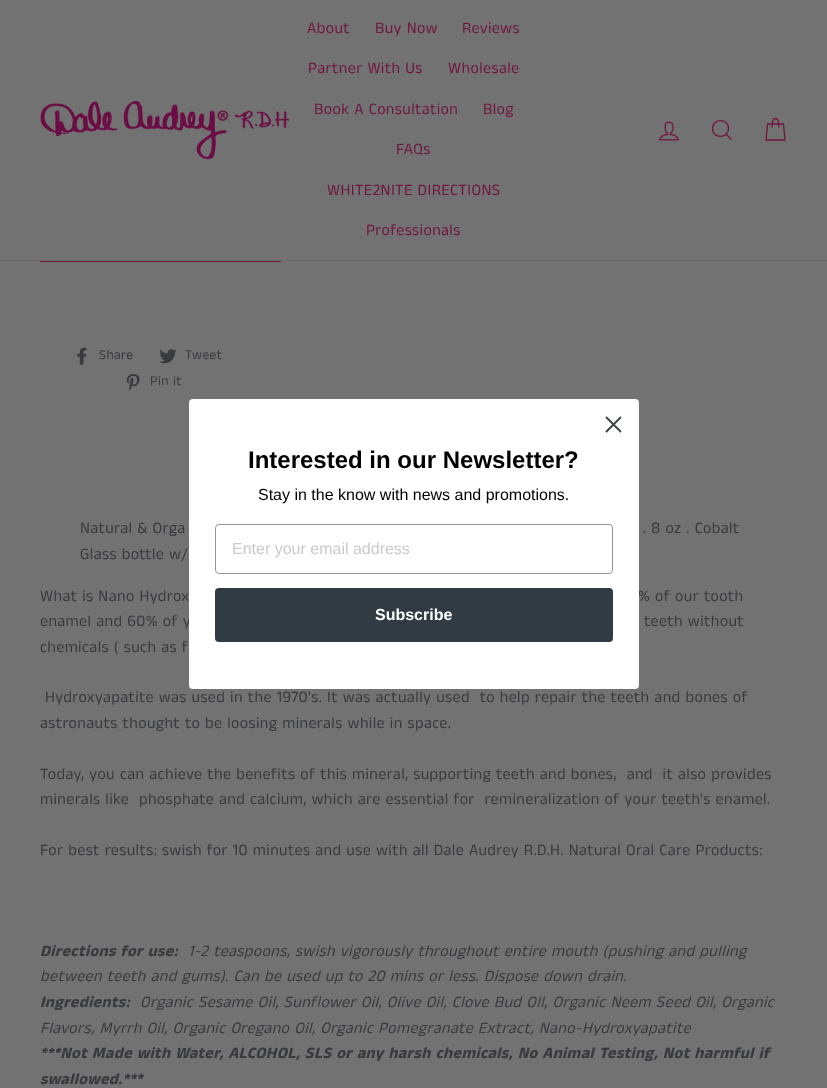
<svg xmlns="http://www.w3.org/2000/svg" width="827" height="1088">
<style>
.a{font:16px Anek Tamil;letter-spacing:0.4px;fill:#70163e}
.b{font:13.5px Anek Tamil;letter-spacing:0.4px;fill:#393a3d}
.c{font:16px Anek Tamil;letter-spacing:0.4px;fill:#393a3d}
.d{font:italic bold 16px Anek Tamil;letter-spacing:0.4px;fill:#393a3d}
.e{font:italic 16px Anek Tamil;letter-spacing:0.4px;fill:#393a3d}
.f{font:bold 24px Liberation Sans;fill:#000}
.g{font:16px Liberation Sans;fill:#000}
.h{font:16px Liberation Sans;fill:#cacacb}
.i{font:bold 16px Liberation Sans;fill:#fff}
</style>
<rect width="100%" height="100%" fill="#727272"/>
<path fill="#696966" d="M0 260h827v1H0z"/>
<image href="1.png" x="40" y="101" width="250" height="58"/>
<image href="2.png" x="659" y="121" width="20" height="20"/>
<path fill="none" stroke="#70163e" stroke-width="1.3" d="M728.5 128.5c0 10.5-16 10.5-16 0c0-10.5 16-10.5 16 0zm3 11l-5-5"/>
<path fill="none" stroke="#70163e" stroke-width="1.3" d="M772 127.5c0-12 7-12 7 0m-11.5-3.5h16l1.5 16h-19z"/>
<path fill="#70163e" d="M40 261h241v1H40z"/>
<image href="3.png" x="77" y="347" width="10" height="18"/>
<image href="4.png" x="159" y="349" width="18" height="15"/>
<image href="5.png" x="126" y="374" width="14" height="17"/>
<text class="a" x="307" y="33">About</text>
<text class="a" x="375" y="33">Buy Now</text>
<text class="a" x="462" y="33">Reviews</text>
<text class="a" x="308" y="73">Partner With Us</text>
<text class="a" x="448" y="73">Wholesale</text>
<text class="a" x="314" y="114">Book A Consultation</text>
<text class="a" x="483" y="114">Blog</text>
<text class="a" x="396" y="154">FAQs</text>
<text class="a" x="327" y="195">WHITE2NITE DIRECTIONS</text>
<text class="a" x="366" y="235">Professionals</text>
<text class="b" x="99" y="359">Share</text>
<text class="b" x="185" y="359">Tweet</text>
<text class="b" x="150" y="385">Pin it</text>
<text class="c" x="80" y="533">Natural &amp; Orga</text>
<text class="c" x="643" y="533">. 8 oz . Cobalt</text>
<text class="c" x="80" y="559">Glass bottle w/</text>
<text class="c" x="40" y="601">What is Nano Hydrox</text>
<text class="c" x="638" y="601">% of our tooth</text>
<text class="c" x="40" y="626">enamel and 60% of y</text>
<text class="c" x="644" y="626">teeth without</text>
<text class="c" x="40" y="652">chemicals ( such as f</text>
<text class="c" xml:space="preserve" x="45" y="702">Hydroxyapatite was used in the 1970's. It was actually used  to help repair the teeth and bones of</text>
<text class="c" x="40" y="728">astronauts thought to be loosing minerals while in space.</text>
<text class="c" xml:space="preserve" x="40" y="779">Today, you can achieve the benefits of this mineral, supporting teeth and bones,  and  it also provides</text>
<text class="c" xml:space="preserve" x="40" y="804">minerals like  phosphate and calcium, which are essential for  remineralization of your teeth's enamel.</text>
<text class="c" x="40" y="855">For best results: swish for 10 minutes and use with all Dale Audrey R.D.H. Natural Oral Care Products:</text>
<text class="d" x="40" y="956">Directions for use:</text>
<text class="e" x="188" y="956">1-2 teaspoons, swish vigorously throughout entire mouth (pushing and pulling</text>
<text class="e" x="40" y="981">between teeth and gums). Can be used up to 20 mins or less. Dispose down drain.</text>
<text class="d" x="40" y="1007">Ingredients:</text>
<text class="e" x="140" y="1007">Organic Sesame Oil, Sunflower Oil, Olive Oil, Clove Bud OIl, Organic Neem Seed Oil, Organic</text>
<text class="e" x="40" y="1033">Flavors, Myrrh Oil, Organic Oregano Oil, Organic Pomegranate Extract, Nano-Hydroxyapatite</text>
<text class="d" x="40" y="1058">***Not Made with Water, ALCOHOL, SLS or any harsh chemicals, No Animal Testing, Not harmful if</text>
<text class="d" x="40" y="1084">swallowed.***</text>
<rect fill="#fff" x="189" y="399" width="450" height="290" rx="4"/>
<path fill="none" stroke="#373f47" stroke-width="1.8" stroke-linecap="round" stroke-linejoin="round" d="M606.5 417.5l14 14m-14 0l14-14z"/>
<text class="f" x="248" y="468">Interested in our Newsletter?</text>
<text class="g" x="258" y="500">Stay in the know with news and promotions.</text>
<rect fill="none" stroke="#949596" x="215.5" y="524.5" width="397" height="49" rx="3.5"/>
<text class="h" x="232" y="554">Enter your email address</text>
<rect fill="#303b43" x="215" y="588" width="398" height="54" rx="4"/>
<text class="i" x="375" y="620">Subscribe</text>
</svg>
